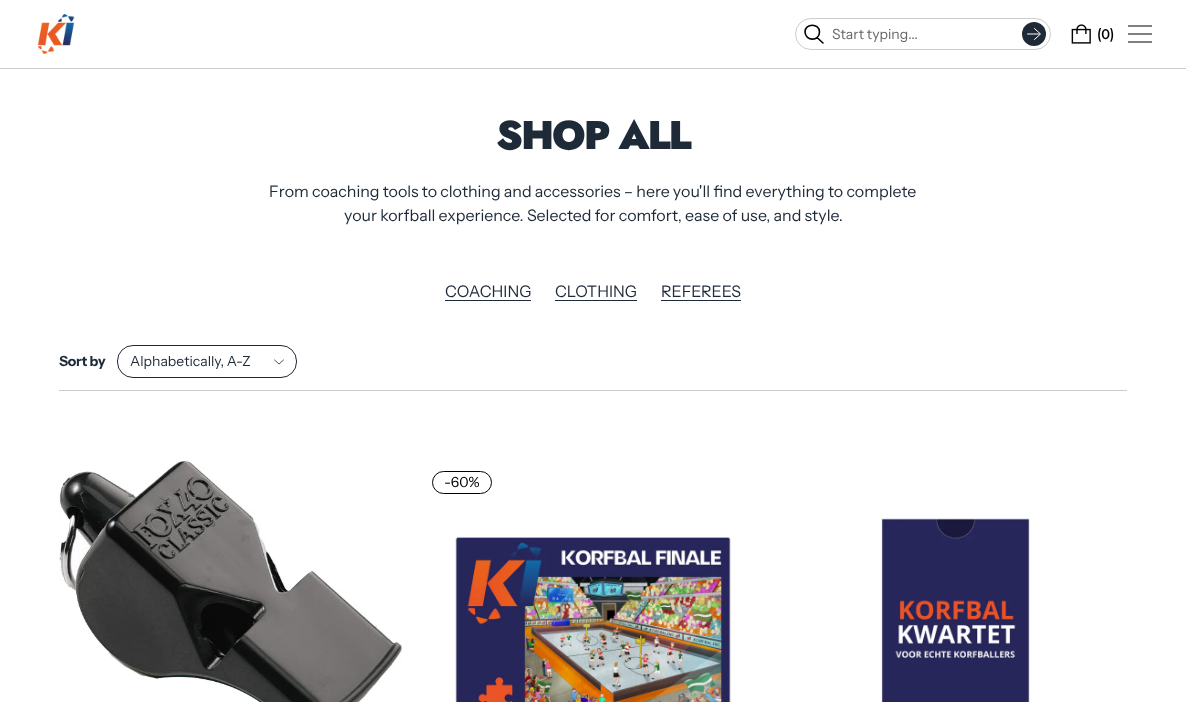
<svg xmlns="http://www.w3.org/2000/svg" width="1186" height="702">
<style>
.a{font:14px Instrument Sans;fill:#666}
.b{font:500 14px Jost;letter-spacing:-0.25px;fill:#000}
.c{font:900 40px Jost;letter-spacing:-2px;fill:#1e2a38}
.d{font:16px Instrument Sans;fill:#1e2a38}
.e{font:bold 14px Instrument Sans;letter-spacing:-0.25px;fill:#1e2a38}
.f{font:14px Instrument Sans;fill:#1e2a38}
.g{font:14px Instrument Sans;fill:#000}
</style>
<rect width="100%" height="100%" fill="#fff"/>
<image href="1.png" x="37" y="14" width="38" height="40"/>
<rect fill="none" stroke="#ccc" x="795.5" y="18.5" width="255" height="31" rx="15.5"/>
<path fill="none" stroke="#000" stroke-width="1.6" stroke-linecap="round" d="M817 37.5l6 5.5m-3.5-11c0 9.5-14 9.5-14.5 0c0-9 14.5-9 14.5 0z"/>
<circle fill="#1e2a38" cx="1034" cy="34" r="12"/>
<path fill="none" stroke="#fff" stroke-linecap="round" stroke-linejoin="round" d="M1027.5 34h12m-5-5.5l6 5.5l-6 5.5"/>
<image href="2.png" x="1071" y="24" width="20" height="20"/>
<path fill="none" stroke="#000" stroke-width="1.2" d="M1128 42h24m-24-8h24m-24-8h24"/>
<path fill="#ccc" d="M0 68h1186v1H0z"/>
<path fill="#1e2a38" d="M445 300h86v1H445z"/>
<path fill="#1e2a38" d="M555 300h82v1H555z"/>
<path fill="#1e2a38" d="M661 300h80v1H661z"/>
<path fill="#ccc" d="M59 390h1068v1H59z"/>
<rect fill="none" stroke="#1e2a38" x="117.5" y="345.5" width="179" height="32" rx="15.5"/>
<path fill="none" stroke="#1e2a38" stroke-width="0.8" stroke-linecap="round" stroke-linejoin="round" d="M274.5 360l4.5 4l4.5-4"/>
<image href="3.png" x="59" y="461" width="343" height="241"/>
<rect fill="none" stroke="#000" x="432.5" y="471.5" width="59" height="22" rx="11"/>
<image href="4.png" x="455" y="537" width="276" height="165"/>
<image href="5.png" x="881" y="518" width="149" height="184"/>
<text class="a" x="832" y="39">Start typing...</text>
<text class="b" x="1097" y="39">(0)</text>
<text class="c" x="496" y="149">SHOP ALL</text>
<text class="d" x="269" y="197">From coaching tools to clothing and accessories – here you'll find everything to complete</text>
<text class="d" x="344" y="221">your korfball experience. Selected for comfort, ease of use, and style.</text>
<text class="d" x="445" y="297">COACHING</text>
<text class="d" x="555" y="297">CLOTHING</text>
<text class="d" x="661" y="297">REFEREES</text>
<text class="e" x="59" y="366">Sort by</text>
<text class="f" x="130" y="366">Alphabetically, A-Z</text>
<text class="g" x="444" y="487">-60%</text>
</svg>
